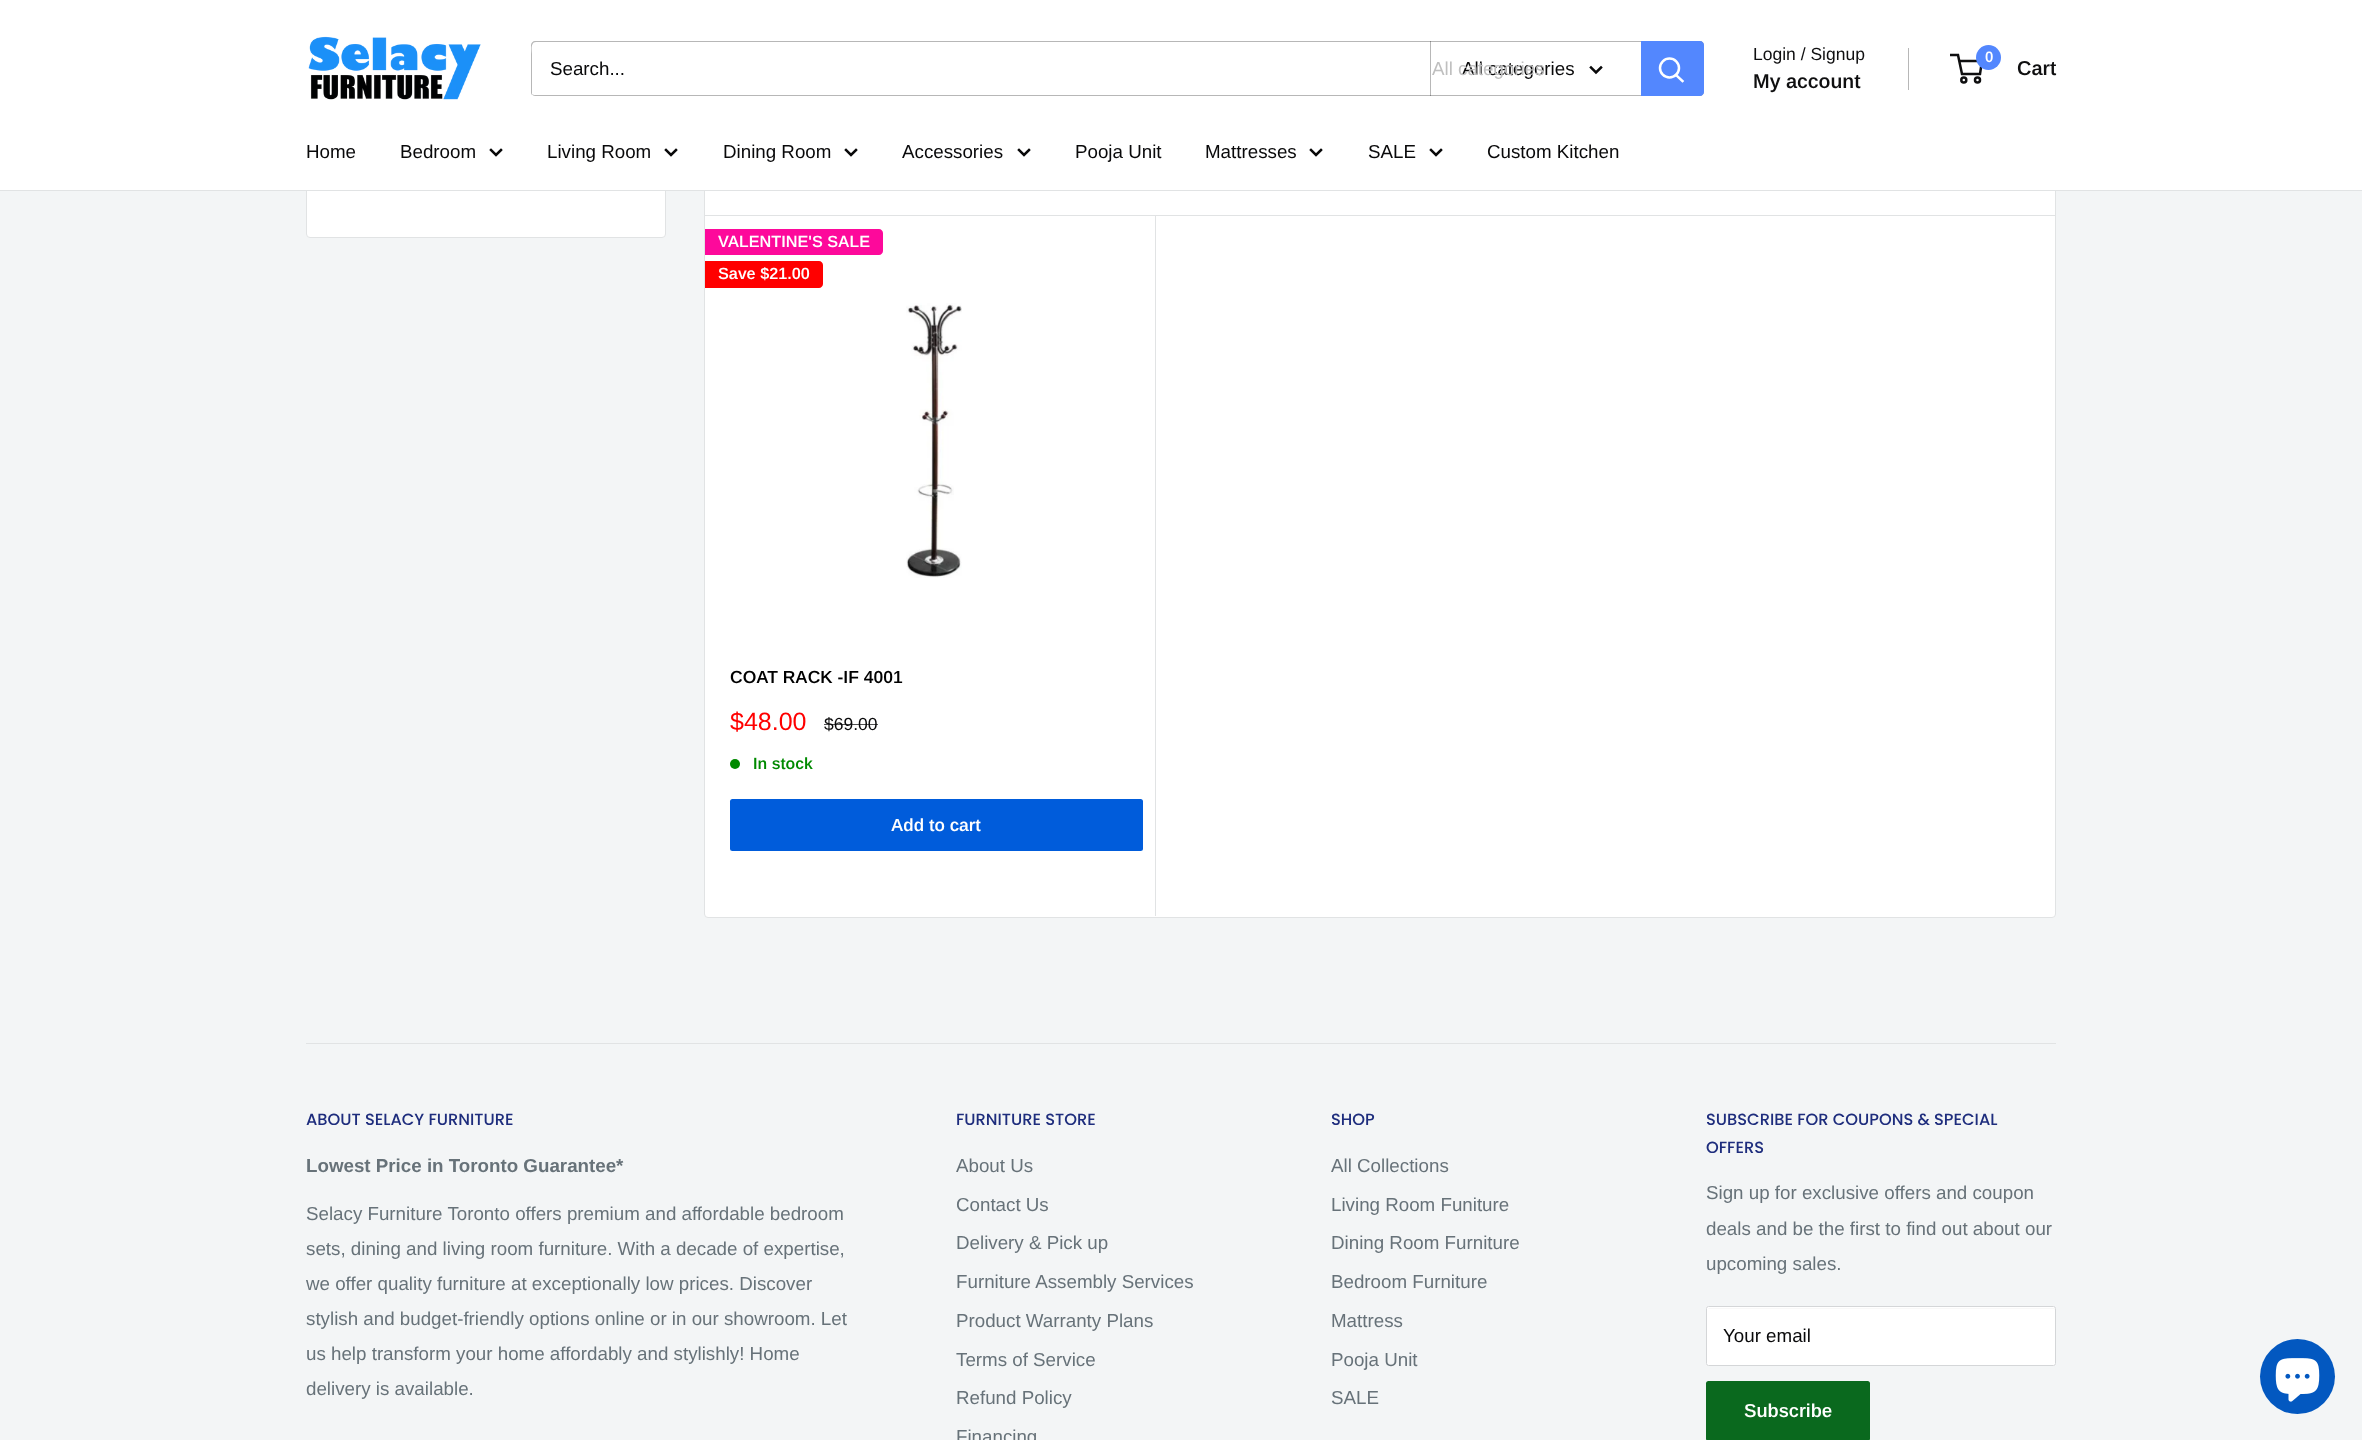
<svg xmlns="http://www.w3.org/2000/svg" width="2362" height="1440">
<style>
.a{font:18.75px Arimo;fill:#09090a}
.b{font:18.75px Arimo;fill:#bfbfbf}
.c{font:17.5px Arimo;fill:#0f0f10}
.d{font:600 20px Arimo;fill:#0f0f10}
.e{font:600 15px Arimo;fill:#fff}
.f{font:600 16.25px Arimo;fill:#fff}
.g{font:600 17.5px Arimo;fill:#000}
.h{font:25px Arimo;fill:#f00}
.i{font:17.5px Arimo;fill:#09090a}
.j{font:600 16.25px Arimo;fill:#008a00}
.k{font:600 17.5px Arimo;fill:#fff}
.l{font:500 16.25px Poppins;fill:#1e2d7d}
.m{font:bold 18.75px Arimo;fill:#677279}
.n{font:18.75px Arimo;fill:#677279}
.o{font:600 18.75px Arimo;fill:#fff}
</style>
<rect width="100%" height="100%" fill="#f3f5f6"/>
<rect fill="#fff" stroke="#e1e3e4" x="306.5" y="-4.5" width="359" height="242" rx="3.5"/>
<rect fill="#fff" stroke="#e1e3e4" x="704.5" y="-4.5" width="1351" height="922" rx="3.5"/>
<path fill="#fff" d="M0 0h2362v190H0z"/>
<image href="1.png" x="308" y="36" width="173" height="64"/>
<path fill="#b7b7b7" d="M532 94c0 1 2 2 3 2h1165c2 0 4-2 4-4v-47c0-2-1-3-3-4l1 3v47c0 2-1 4-3 4h-1165z"/>
<path fill="#0f0f104d" d="M536 42h1165l2 1c0-1-2-2-3-2h-1165c-2 0-4 2-4 4v47c0 1 0 2 1 3v-41c0-2-2-12 4-12z"/>
<path fill="#0f0f104d" d="M1430 41h1v55H1430z"/>
<path fill="none" stroke="#09090a" stroke-width="2.5" stroke-linecap="square" d="M1601 67.5l-5 5l-5-5"/>
<path fill="#5387fe" d="M1641 41h59c2 0 4 2 4 4v47c0 2-2 4-4 4h-59z"/>
<path fill="none" stroke="#fff" stroke-width="2.5" stroke-linecap="square" d="M1682.5 81l-6.5-6"/>
<circle fill="none" stroke="#fff" stroke-width="2.5" cx="1669.5" cy="68" r="9.5"/>
<path fill="#b7b7b7" d="M1908 48h1v42H1908z"/>
<circle fill="none" stroke="#0f0f10" stroke-width="2.5" cx="1963.8" cy="80" r="2.5"/>
<circle fill="none" stroke="#0f0f10" stroke-width="2.5" cx="1977.5" cy="80" r="2.5"/>
<path fill="none" stroke="#0f0f10" stroke-width="2.5" d="M1959 61h23l-2 13h-18l-4-19h-8"/>
<circle fill="#5387fe" cx="1988.5" cy="57.5" r="12.5"/>
<path fill="#e1e3e4" d="M0 190h2362v1H0z"/>
<path fill="none" stroke="#09090a" stroke-width="2.5" stroke-linecap="square" d="M501 150l-5 5l-5-5"/>
<path fill="none" stroke="#09090a" stroke-width="2.5" stroke-linecap="square" d="M676 150l-5 5l-5-5"/>
<path fill="none" stroke="#09090a" stroke-width="2.5" stroke-linecap="square" d="M856 150l-5 5l-5-5"/>
<path fill="none" stroke="#09090a" stroke-width="2.5" stroke-linecap="square" d="M1029 150l-5 5l-5-5"/>
<path fill="none" stroke="#09090a" stroke-width="2.5" stroke-linecap="square" d="M1321 150l-5 5l-5-5"/>
<path fill="none" stroke="#09090a" stroke-width="2.5" stroke-linecap="square" d="M1441 150l-5 5l-5-5"/>
<path fill="#e1e3e4" d="M1155 215h1v701H1155z"/>
<path fill="#e1e3e4" d="M705 215h1350v1H705z"/>
<path fill="#fd099b" d="M705 229h174c2 0 4 2 4 4v18c0 2-2 4-4 4h-174z"/>
<path fill="#f00" d="M705 261h114c2 0 4 2 4 4v19c0 2-2 4-4 4h-114z"/>
<image href="2.png" x="906" y="303" width="56" height="275"/>
<circle fill="#008a00" cx="735" cy="764" r="5"/>
<rect fill="#005cdb" x="730" y="799" width="413" height="52" rx="2.5"/>
<path fill="#e1e3e4" d="M306 1043h1750v1H306z"/>
<rect fill="#fff" x="1706" y="1306" width="350" height="60" rx="2.5"/>
<path fill="#f8f8f8" d="M1709 1309h345l1 1v-2h-173h-173l-1 1v1c0-1 0-1 1-1z"/>
<rect fill="none" stroke="#d4d6d8" x="1706.5" y="1306.5" width="349" height="59" rx="2"/>
<rect fill="#0a691e" x="1706" y="1381" width="164" height="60" rx="2.5"/>
<circle fill="#0358c0" cx="2297.5" cy="1376.5" r="37.5"/>
<image href="3.png" x="2275" y="1358" width="45" height="44"/>
<text class="a" x="550" y="75">Search...</text>
<text class="a" x="1462" y="75">All categories</text>
<text class="b" x="1432" y="75">All categories</text>
<text class="c" x="1753" y="60">Login / Signup</text>
<text class="d" x="1753" y="88">My account</text>
<text class="e" x="1985" y="62">0</text>
<text class="d" x="2017" y="75">Cart</text>
<text class="a" x="306" y="158">Home</text>
<text class="a" x="400" y="158">Bedroom</text>
<text class="a" x="547" y="158">Living Room</text>
<text class="a" x="723" y="158">Dining Room</text>
<text class="a" x="902" y="158">Accessories</text>
<text class="a" x="1075" y="158">Pooja Unit</text>
<text class="a" x="1205" y="158">Mattresses</text>
<text class="a" x="1368" y="158">SALE</text>
<text class="a" x="1487" y="158">Custom Kitchen</text>
<text class="f" x="718" y="247">VALENTINE'S SALE</text>
<text class="f" x="718" y="279">Save $21.00</text>
<text class="g" x="730" y="683">COAT RACK -IF 4001</text>
<text class="h" x="730" y="730">$48.00</text>
<text class="i" x="824" y="730">$69.00</text>
<path fill="#09090ab3" d="M824 724h54v1H824z"/>
<text class="j" x="753" y="769">In stock</text>
<text class="k" x="891" y="831">Add to cart</text>
<text class="l" x="306" y="1125">ABOUT SELACY FURNITURE</text>
<text class="m" x="306" y="1172">Lowest Price in Toronto Guarantee*</text>
<text class="n" x="306" y="1220">Selacy Furniture Toronto offers premium and affordable bedroom</text>
<text class="n" x="306" y="1255">sets, dining and living room furniture. With a decade of expertise,</text>
<text class="n" x="306" y="1290">we offer quality furniture at exceptionally low prices. Discover</text>
<text class="n" x="306" y="1325">stylish and budget-friendly options online or in our showroom. Let</text>
<text class="n" x="306" y="1360">us help transform your home affordably and stylishly! Home</text>
<text class="n" x="306" y="1395">delivery is available.</text>
<text class="l" x="956" y="1125">FURNITURE STORE</text>
<text class="n" x="956" y="1172">About Us</text>
<text class="n" x="956" y="1211">Contact Us</text>
<text class="n" x="956" y="1249">Delivery &amp; Pick up</text>
<text class="n" x="956" y="1288">Furniture Assembly Services</text>
<text class="n" x="956" y="1327">Product Warranty Plans</text>
<text class="n" x="956" y="1366">Terms of Service</text>
<text class="n" x="956" y="1404">Refund Policy</text>
<text class="n" x="956" y="1443">Financing</text>
<text class="l" x="1331" y="1125">SHOP</text>
<text class="n" x="1331" y="1172">All Collections</text>
<text class="n" x="1331" y="1211">Living Room Funiture</text>
<text class="n" x="1331" y="1249">Dining Room Furniture</text>
<text class="n" x="1331" y="1288">Bedroom Furniture</text>
<text class="n" x="1331" y="1327">Mattress</text>
<text class="n" x="1331" y="1366">Pooja Unit</text>
<text class="n" x="1331" y="1404">SALE</text>
<text class="l" x="1706" y="1125">SUBSCRIBE FOR COUPONS &amp; SPECIAL</text>
<text class="l" x="1706" y="1153">OFFERS</text>
<text class="n" x="1706" y="1199">Sign up for exclusive offers and coupon</text>
<text class="n" x="1706" y="1235">deals and be the first to find out about our</text>
<text class="n" x="1706" y="1270">upcoming sales.</text>
<text class="a" x="1723" y="1342">Your email</text>
<text class="o" x="1744" y="1417">Subscribe</text>
</svg>
